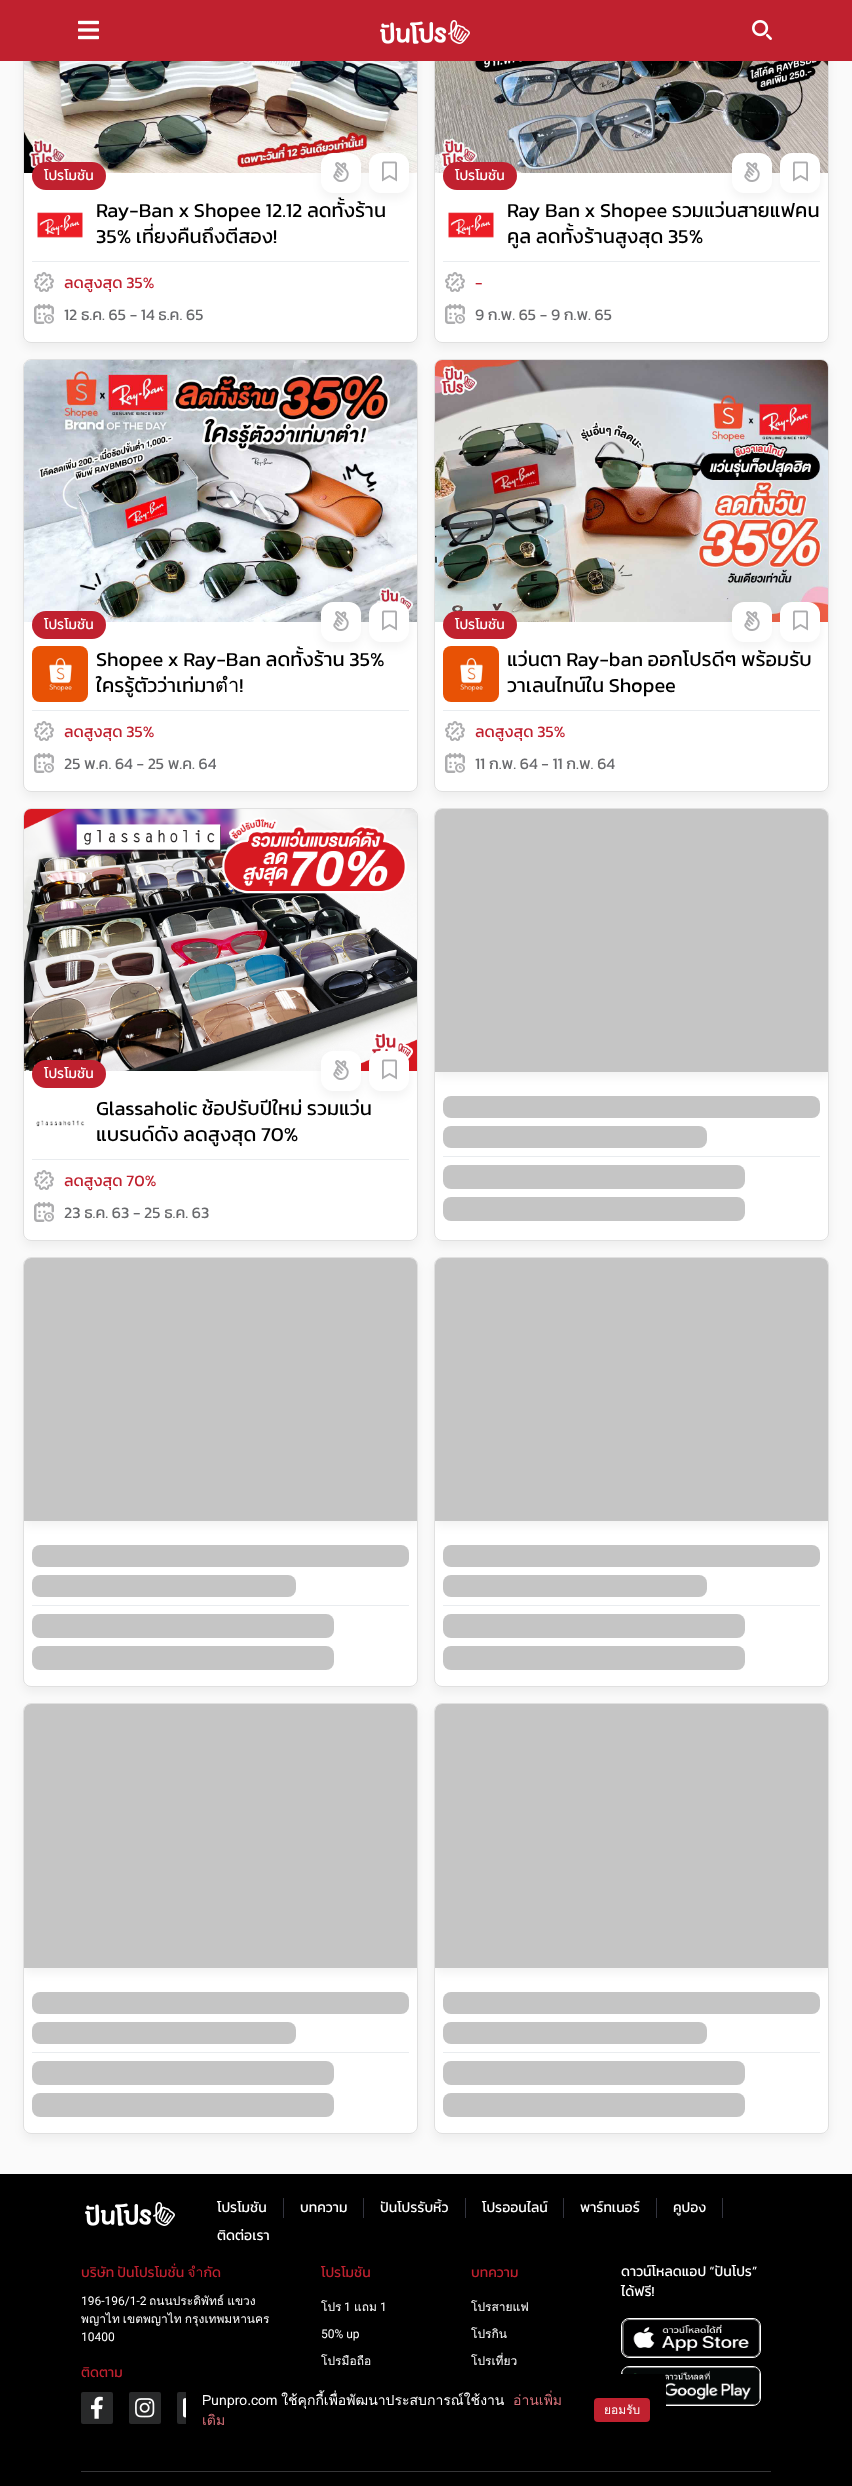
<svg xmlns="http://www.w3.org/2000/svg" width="852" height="2486">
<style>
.a{font:14px Kanit;fill:#fff}
.b{font:20px Kanit;fill:#000}
.c{font:16px Kanit;fill:#c0212f}
.d{font:16px Kanit;fill:#696a6d}
.e{font:14px Kanit;fill:#c0212f}
.f{font:12px Roboto;fill:#fff}
.g{font:12px Loma;fill:#fff}
.h{font:14px Loma;fill:#fff}
.i{font:14px Loma;fill:#d7717a}
</style>
<defs>
<clipPath id="clip1"><rect x="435" y="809" width="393" height="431" rx="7"/></clipPath>
<clipPath id="clip2"><rect x="435" y="809" width="393" height="431" rx="7"/></clipPath>
<linearGradient id="g1" gradientUnits="userSpaceOnUse" x1="135" y1="861" x2="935" y2="861"><stop offset="0.08" stop-color="#c5c5c5"/><stop offset="0.18" stop-color="#bbbaba"/><stop offset="0.33" stop-color="#c5c5c5"/></linearGradient>
<linearGradient id="g2" gradientUnits="userSpaceOnUse" x1="143" y1="1148" x2="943" y2="1148"><stop offset="0.08" stop-color="#c5c5c5"/><stop offset="0.18" stop-color="#bbbaba"/><stop offset="0.33" stop-color="#c5c5c5"/></linearGradient>
<linearGradient id="g3" gradientUnits="userSpaceOnUse" x1="143" y1="1178" x2="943" y2="1178"><stop offset="0.08" stop-color="#c5c5c5"/><stop offset="0.18" stop-color="#bbbaba"/><stop offset="0.33" stop-color="#c5c5c5"/></linearGradient>
<linearGradient id="g4" gradientUnits="userSpaceOnUse" x1="143" y1="1217" x2="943" y2="1217"><stop offset="0.08" stop-color="#c5c5c5"/><stop offset="0.18" stop-color="#bbbaba"/><stop offset="0.33" stop-color="#c5c5c5"/></linearGradient>
<linearGradient id="g5" gradientUnits="userSpaceOnUse" x1="143" y1="1249" x2="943" y2="1249"><stop offset="0.08" stop-color="#c5c5c5"/><stop offset="0.18" stop-color="#bbbaba"/><stop offset="0.33" stop-color="#c5c5c5"/></linearGradient>
<clipPath id="clip3"><rect x="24" y="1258" width="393" height="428" rx="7"/></clipPath>
<clipPath id="clip4"><rect x="24" y="1258" width="393" height="428" rx="7"/></clipPath>
<linearGradient id="g6" gradientUnits="userSpaceOnUse" x1="-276" y1="1310" x2="524" y2="1310"><stop offset="0.08" stop-color="#c5c5c5"/><stop offset="0.18" stop-color="#bbbaba"/><stop offset="0.33" stop-color="#c5c5c5"/></linearGradient>
<linearGradient id="g7" gradientUnits="userSpaceOnUse" x1="-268" y1="1597" x2="532" y2="1597"><stop offset="0.08" stop-color="#c5c5c5"/><stop offset="0.18" stop-color="#bbbaba"/><stop offset="0.33" stop-color="#c5c5c5"/></linearGradient>
<linearGradient id="g8" gradientUnits="userSpaceOnUse" x1="-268" y1="1627" x2="532" y2="1627"><stop offset="0.08" stop-color="#c5c5c5"/><stop offset="0.18" stop-color="#bbbaba"/><stop offset="0.33" stop-color="#c5c5c5"/></linearGradient>
<linearGradient id="g9" gradientUnits="userSpaceOnUse" x1="-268" y1="1666" x2="532" y2="1666"><stop offset="0.08" stop-color="#c5c5c5"/><stop offset="0.18" stop-color="#bbbaba"/><stop offset="0.33" stop-color="#c5c5c5"/></linearGradient>
<linearGradient id="g10" gradientUnits="userSpaceOnUse" x1="-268" y1="1698" x2="532" y2="1698"><stop offset="0.08" stop-color="#c5c5c5"/><stop offset="0.18" stop-color="#bbbaba"/><stop offset="0.33" stop-color="#c5c5c5"/></linearGradient>
<clipPath id="clip5"><rect x="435" y="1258" width="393" height="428" rx="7"/></clipPath>
<clipPath id="clip6"><rect x="435" y="1258" width="393" height="428" rx="7"/></clipPath>
<linearGradient id="g11" gradientUnits="userSpaceOnUse" x1="135" y1="1310" x2="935" y2="1310"><stop offset="0.08" stop-color="#c5c5c5"/><stop offset="0.18" stop-color="#bbbaba"/><stop offset="0.33" stop-color="#c5c5c5"/></linearGradient>
<linearGradient id="g12" gradientUnits="userSpaceOnUse" x1="143" y1="1597" x2="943" y2="1597"><stop offset="0.08" stop-color="#c5c5c5"/><stop offset="0.18" stop-color="#bbbaba"/><stop offset="0.33" stop-color="#c5c5c5"/></linearGradient>
<linearGradient id="g13" gradientUnits="userSpaceOnUse" x1="143" y1="1627" x2="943" y2="1627"><stop offset="0.08" stop-color="#c5c5c5"/><stop offset="0.18" stop-color="#bbbaba"/><stop offset="0.33" stop-color="#c5c5c5"/></linearGradient>
<linearGradient id="g14" gradientUnits="userSpaceOnUse" x1="143" y1="1666" x2="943" y2="1666"><stop offset="0.08" stop-color="#c5c5c5"/><stop offset="0.18" stop-color="#bbbaba"/><stop offset="0.33" stop-color="#c5c5c5"/></linearGradient>
<linearGradient id="g15" gradientUnits="userSpaceOnUse" x1="143" y1="1698" x2="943" y2="1698"><stop offset="0.08" stop-color="#c5c5c5"/><stop offset="0.18" stop-color="#bbbaba"/><stop offset="0.33" stop-color="#c5c5c5"/></linearGradient>
<clipPath id="clip7"><rect x="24" y="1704" width="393" height="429" rx="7"/></clipPath>
<clipPath id="clip8"><rect x="24" y="1704" width="393" height="429" rx="7"/></clipPath>
<linearGradient id="g16" gradientUnits="userSpaceOnUse" x1="-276" y1="1756" x2="524" y2="1756"><stop offset="0.08" stop-color="#c5c5c5"/><stop offset="0.18" stop-color="#bbbaba"/><stop offset="0.33" stop-color="#c5c5c5"/></linearGradient>
<linearGradient id="g17" gradientUnits="userSpaceOnUse" x1="-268" y1="2044" x2="532" y2="2044"><stop offset="0.08" stop-color="#c5c5c5"/><stop offset="0.18" stop-color="#bbbaba"/><stop offset="0.33" stop-color="#c5c5c5"/></linearGradient>
<linearGradient id="g18" gradientUnits="userSpaceOnUse" x1="-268" y1="2074" x2="532" y2="2074"><stop offset="0.08" stop-color="#c5c5c5"/><stop offset="0.18" stop-color="#bbbaba"/><stop offset="0.33" stop-color="#c5c5c5"/></linearGradient>
<linearGradient id="g19" gradientUnits="userSpaceOnUse" x1="-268" y1="2113" x2="532" y2="2113"><stop offset="0.08" stop-color="#c5c5c5"/><stop offset="0.18" stop-color="#bbbaba"/><stop offset="0.33" stop-color="#c5c5c5"/></linearGradient>
<linearGradient id="g20" gradientUnits="userSpaceOnUse" x1="-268" y1="2145" x2="532" y2="2145"><stop offset="0.08" stop-color="#c5c5c5"/><stop offset="0.18" stop-color="#bbbaba"/><stop offset="0.33" stop-color="#c5c5c5"/></linearGradient>
<clipPath id="clip9"><rect x="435" y="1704" width="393" height="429" rx="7"/></clipPath>
<clipPath id="clip10"><rect x="435" y="1704" width="393" height="429" rx="7"/></clipPath>
<linearGradient id="g21" gradientUnits="userSpaceOnUse" x1="135" y1="1756" x2="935" y2="1756"><stop offset="0.08" stop-color="#c5c5c5"/><stop offset="0.18" stop-color="#bbbaba"/><stop offset="0.33" stop-color="#c5c5c5"/></linearGradient>
<linearGradient id="g22" gradientUnits="userSpaceOnUse" x1="143" y1="2044" x2="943" y2="2044"><stop offset="0.08" stop-color="#c5c5c5"/><stop offset="0.18" stop-color="#bbbaba"/><stop offset="0.33" stop-color="#c5c5c5"/></linearGradient>
<linearGradient id="g23" gradientUnits="userSpaceOnUse" x1="143" y1="2074" x2="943" y2="2074"><stop offset="0.08" stop-color="#c5c5c5"/><stop offset="0.18" stop-color="#bbbaba"/><stop offset="0.33" stop-color="#c5c5c5"/></linearGradient>
<linearGradient id="g24" gradientUnits="userSpaceOnUse" x1="143" y1="2113" x2="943" y2="2113"><stop offset="0.08" stop-color="#c5c5c5"/><stop offset="0.18" stop-color="#bbbaba"/><stop offset="0.33" stop-color="#c5c5c5"/></linearGradient>
<linearGradient id="g25" gradientUnits="userSpaceOnUse" x1="143" y1="2145" x2="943" y2="2145"><stop offset="0.08" stop-color="#c5c5c5"/><stop offset="0.18" stop-color="#bbbaba"/><stop offset="0.33" stop-color="#c5c5c5"/></linearGradient>
<clipPath id="clip11"><path d="M507 197h313v52H507z"/></clipPath>
</defs>
<rect width="100%" height="100%" fill="#fafafa"/>
<rect fill="#0000000d" filter="blur(5px)" x="23" y="-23" width="395" height="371" rx="8"/>
<rect fill="#fff" x="23" y="-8" width="395" height="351" rx="8"/>
<rect fill="none" stroke="#0000001f" x="23.5" y="-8.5" width="394" height="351" rx="7.5"/>
<rect fill="#0000000d" filter="blur(5px)" x="434" y="-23" width="395" height="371" rx="8"/>
<rect fill="#fff" x="434" y="-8" width="395" height="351" rx="8"/>
<rect fill="none" stroke="#0000001f" x="434.5" y="-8.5" width="394" height="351" rx="7.5"/>
<path fill="#c0212f" d="M0 0h852v61H0z"/>
<image href="1.png" x="78" y="20" width="21" height="20"/>
<image href="2.png" x="380" y="20" width="90" height="24"/>
<image href="3.png" x="752" y="20" width="20" height="20"/>
<image href="4.png" x="24" y="61" width="393" height="112"/>
<rect fill="#c0212f" x="32" y="162" width="74" height="28" rx="14"/>
<rect fill="#0000000d" filter="blur(5px)" x="321" y="158" width="40" height="40" rx="12"/>
<rect fill="#fff" x="321" y="153" width="40" height="40" rx="12"/>
<image href="5.png" x="333" y="162" width="16" height="20"/>
<rect fill="#0000000d" filter="blur(5px)" x="369" y="158" width="40" height="40" rx="12"/>
<rect fill="#fff" x="369" y="153" width="40" height="40" rx="12"/>
<image href="6.png" x="382" y="161" width="15" height="21"/>
<image href="7.png" x="37" y="212" width="46" height="26"/>
<path fill="#e9ecef" d="M32 261h377v1H32z"/>
<image href="8.png" x="34" y="272" width="20" height="20"/>
<image href="9.png" x="34" y="304" width="20" height="20"/>
<image href="10.png" x="435" y="61" width="393" height="112"/>
<rect fill="#c0212f" x="443" y="162" width="74" height="28" rx="14"/>
<rect fill="#0000000d" filter="blur(5px)" x="732" y="158" width="40" height="40" rx="12"/>
<rect fill="#fff" x="732" y="153" width="40" height="40" rx="12"/>
<image href="5.png" x="744" y="162" width="16" height="20"/>
<rect fill="#0000000d" filter="blur(5px)" x="780" y="158" width="40" height="40" rx="12"/>
<rect fill="#fff" x="780" y="153" width="40" height="40" rx="12"/>
<image href="6.png" x="793" y="161" width="15" height="21"/>
<image href="7.png" x="448" y="212" width="46" height="26"/>
<path fill="#e9ecef" d="M443 261h377v1H443z"/>
<image href="8.png" x="445" y="272" width="20" height="20"/>
<image href="9.png" x="445" y="304" width="20" height="20"/>
<rect fill="#0000000d" filter="blur(5px)" x="23" y="364" width="395" height="433" rx="8"/>
<rect fill="#fff" x="23" y="359" width="395" height="433" rx="8"/>
<rect fill="none" stroke="#0000001f" x="23.5" y="359.5" width="394" height="432" rx="7.5"/>
<image href="11.png" x="24" y="360" width="393" height="262"/>
<rect fill="#c0212f" x="32" y="611" width="74" height="28" rx="14"/>
<rect fill="#0000000d" filter="blur(5px)" x="321" y="607" width="40" height="40" rx="12"/>
<rect fill="#fff" x="321" y="602" width="40" height="40" rx="12"/>
<image href="5.png" x="333" y="611" width="16" height="20"/>
<rect fill="#0000000d" filter="blur(5px)" x="369" y="607" width="40" height="40" rx="12"/>
<rect fill="#fff" x="369" y="602" width="40" height="40" rx="12"/>
<image href="6.png" x="382" y="610" width="15" height="21"/>
<image href="12.png" x="32" y="646" width="56" height="56"/>
<path fill="#e9ecef" d="M32 710h377v1H32z"/>
<image href="8.png" x="34" y="721" width="20" height="20"/>
<image href="9.png" x="34" y="753" width="20" height="20"/>
<rect fill="#0000000d" filter="blur(5px)" x="434" y="364" width="395" height="433" rx="8"/>
<rect fill="#fff" x="434" y="359" width="395" height="433" rx="8"/>
<rect fill="none" stroke="#0000001f" x="434.5" y="359.5" width="394" height="432" rx="7.5"/>
<image href="13.png" x="435" y="360" width="393" height="262"/>
<rect fill="#c0212f" x="443" y="611" width="74" height="28" rx="14"/>
<rect fill="#0000000d" filter="blur(5px)" x="732" y="607" width="40" height="40" rx="12"/>
<rect fill="#fff" x="732" y="602" width="40" height="40" rx="12"/>
<image href="5.png" x="744" y="611" width="16" height="20"/>
<rect fill="#0000000d" filter="blur(5px)" x="780" y="607" width="40" height="40" rx="12"/>
<rect fill="#fff" x="780" y="602" width="40" height="40" rx="12"/>
<image href="6.png" x="793" y="610" width="15" height="21"/>
<image href="12.png" x="443" y="646" width="56" height="56"/>
<path fill="#e9ecef" d="M443 710h377v1H443z"/>
<image href="8.png" x="445" y="721" width="20" height="20"/>
<image href="9.png" x="445" y="753" width="20" height="20"/>
<rect fill="#0000000d" filter="blur(5px)" x="23" y="813" width="395" height="433" rx="8"/>
<rect fill="#fff" x="23" y="808" width="395" height="433" rx="8"/>
<rect fill="none" stroke="#0000001f" x="23.5" y="808.5" width="394" height="432" rx="7.5"/>
<image href="14.png" x="24" y="809" width="393" height="262"/>
<rect fill="#c0212f" x="32" y="1060" width="74" height="28" rx="14"/>
<rect fill="#0000000d" filter="blur(5px)" x="321" y="1056" width="40" height="40" rx="12"/>
<rect fill="#fff" x="321" y="1051" width="40" height="40" rx="12"/>
<image href="5.png" x="333" y="1060" width="16" height="20"/>
<rect fill="#0000000d" filter="blur(5px)" x="369" y="1056" width="40" height="40" rx="12"/>
<rect fill="#fff" x="369" y="1051" width="40" height="40" rx="12"/>
<image href="6.png" x="382" y="1059" width="15" height="21"/>
<image href="15.png" x="36" y="1120" width="49" height="7"/>
<path fill="#e9ecef" d="M32 1159h377v1H32z"/>
<image href="8.png" x="34" y="1170" width="20" height="20"/>
<image href="9.png" x="34" y="1202" width="20" height="20"/>
<rect fill="#0000000d" filter="blur(5px)" x="434" y="813" width="395" height="433" rx="8"/>
<rect fill="#fff" x="434" y="808" width="395" height="433" rx="8"/>
<rect fill="none" stroke="#0000001f" x="434.5" y="808.5" width="394" height="432" rx="7.5"/>
<g clip-path="url(#clip1)">
<rect fill="#0000000d" filter="blur(5px)" x="435" y="814" width="395" height="263" rx="4"/>
</g>
<g clip-path="url(#clip2)">
<path fill="url(#g1)" d="M439 809h387c2 0 4 2 4 4v259h-395v-259c0-2 2-4 4-4z"/>
</g>
<rect fill="url(#g2)" x="443" y="1096" width="377" height="22" rx="8"/>
<rect fill="url(#g3)" x="443" y="1126" width="264" height="22" rx="8"/>
<path fill="#e9ecef" d="M443 1156h377v1H443z"/>
<rect fill="url(#g4)" x="443" y="1165" width="302" height="24" rx="8"/>
<rect fill="url(#g5)" x="443" y="1197" width="302" height="24" rx="8"/>
<rect fill="#0000000d" filter="blur(5px)" x="23" y="1262" width="395" height="430" rx="8"/>
<rect fill="#fff" x="23" y="1257" width="395" height="430" rx="8"/>
<rect fill="none" stroke="#0000001f" x="23.5" y="1257.5" width="394" height="429" rx="7.5"/>
<g clip-path="url(#clip3)">
<rect fill="#0000000d" filter="blur(5px)" x="24" y="1263" width="395" height="263" rx="4"/>
</g>
<g clip-path="url(#clip4)">
<path fill="url(#g6)" d="M28 1258h387c2 0 4 2 4 4v259h-395v-259c0-2 2-4 4-4z"/>
</g>
<rect fill="url(#g7)" x="32" y="1545" width="377" height="22" rx="8"/>
<rect fill="url(#g8)" x="32" y="1575" width="264" height="22" rx="8"/>
<path fill="#e9ecef" d="M32 1605h377v1H32z"/>
<rect fill="url(#g9)" x="32" y="1614" width="302" height="24" rx="8"/>
<rect fill="url(#g10)" x="32" y="1646" width="302" height="24" rx="8"/>
<rect fill="#0000000d" filter="blur(5px)" x="434" y="1262" width="395" height="430" rx="8"/>
<rect fill="#fff" x="434" y="1257" width="395" height="430" rx="8"/>
<rect fill="none" stroke="#0000001f" x="434.5" y="1257.5" width="394" height="429" rx="7.5"/>
<g clip-path="url(#clip5)">
<rect fill="#0000000d" filter="blur(5px)" x="435" y="1263" width="395" height="263" rx="4"/>
</g>
<g clip-path="url(#clip6)">
<path fill="url(#g11)" d="M439 1258h387c2 0 4 2 4 4v259h-395v-259c0-2 2-4 4-4z"/>
</g>
<rect fill="url(#g12)" x="443" y="1545" width="377" height="22" rx="8"/>
<rect fill="url(#g13)" x="443" y="1575" width="264" height="22" rx="8"/>
<path fill="#e9ecef" d="M443 1605h377v1H443z"/>
<rect fill="url(#g14)" x="443" y="1614" width="302" height="24" rx="8"/>
<rect fill="url(#g15)" x="443" y="1646" width="302" height="24" rx="8"/>
<rect fill="#0000000d" filter="blur(5px)" x="23" y="1708" width="395" height="431" rx="8"/>
<rect fill="#fff" x="23" y="1703" width="395" height="431" rx="8"/>
<rect fill="none" stroke="#0000001f" x="23.5" y="1703.5" width="394" height="430" rx="7.5"/>
<g clip-path="url(#clip7)">
<rect fill="#0000000d" filter="blur(5px)" x="24" y="1709" width="395" height="264" rx="4"/>
</g>
<g clip-path="url(#clip8)">
<path fill="url(#g16)" d="M28 1704h387c2 0 4 2 4 4v260h-395v-260c0-2 2-4 4-4z"/>
</g>
<rect fill="url(#g17)" x="32" y="1992" width="377" height="22" rx="8"/>
<rect fill="url(#g18)" x="32" y="2022" width="264" height="22" rx="8"/>
<path fill="#e9ecef" d="M32 2052h377v1H32z"/>
<rect fill="url(#g19)" x="32" y="2061" width="302" height="24" rx="8"/>
<rect fill="url(#g20)" x="32" y="2093" width="302" height="24" rx="8"/>
<rect fill="#0000000d" filter="blur(5px)" x="434" y="1708" width="395" height="431" rx="8"/>
<rect fill="#fff" x="434" y="1703" width="395" height="431" rx="8"/>
<rect fill="none" stroke="#0000001f" x="434.5" y="1703.5" width="394" height="430" rx="7.5"/>
<g clip-path="url(#clip9)">
<rect fill="#0000000d" filter="blur(5px)" x="435" y="1709" width="395" height="264" rx="4"/>
</g>
<g clip-path="url(#clip10)">
<path fill="url(#g21)" d="M439 1704h387c2 0 4 2 4 4v260h-395v-260c0-2 2-4 4-4z"/>
</g>
<rect fill="url(#g22)" x="443" y="1992" width="377" height="22" rx="8"/>
<rect fill="url(#g23)" x="443" y="2022" width="264" height="22" rx="8"/>
<path fill="#e9ecef" d="M443 2052h377v1H443z"/>
<rect fill="url(#g24)" x="443" y="2061" width="302" height="24" rx="8"/>
<rect fill="url(#g25)" x="443" y="2093" width="302" height="24" rx="8"/>
<path fill="#000" d="M0 2174h852v312H0z"/>
<image href="16.png" x="85" y="2202" width="90" height="24"/>
<path fill="#33343f" d="M283 2198h1v20H283z"/>
<path fill="#33343f" d="M363 2198h1v20H363z"/>
<path fill="#33343f" d="M465 2198h1v20H465z"/>
<path fill="#33343f" d="M563 2198h1v20H563z"/>
<path fill="#33343f" d="M656 2198h1v20H656z"/>
<path fill="#33343f" d="M722 2198h1v20H722z"/>
<rect fill="#28292a" x="81" y="2392" width="32" height="32" rx="2"/>
<image href="17.png" x="91" y="2396" width="12" height="23"/>
<rect fill="#28292a" x="129" y="2392" width="32" height="32" rx="2"/>
<image href="18.png" x="135" y="2398" width="20" height="20"/>
<rect fill="#28292a" x="177" y="2392" width="32" height="32" rx="2"/>
<image href="19.png" x="183" y="2398" width="3" height="20"/>
<rect fill="none" stroke="#fff" x="621.5" y="2318.5" width="139" height="39" rx="7.5"/>
<image href="20.png" x="622" y="2319" width="138" height="38"/>
<rect fill="none" stroke="#fff" x="621.5" y="2366.5" width="139" height="39" rx="7.5"/>
<image href="21.png" x="622" y="2367" width="138" height="38"/>
<path fill="#363638" d="M81 2471h690v1H81z"/>
<rect fill="#000" x="186" y="2374" width="480" height="72" rx="4"/>
<rect fill="#c0212f" x="594" y="2398" width="56" height="24" rx="4"/>
<text class="a" x="44" y="180">โปรโมชัน</text>
<text class="b" x="96" y="217">Ray-Ban x Shopee 12.12 ลดทั้งร้าน</text>
<text class="b" x="96" y="243">35% เที่ยงคืนถึงตีสอง!</text>
<text class="c" x="64" y="288">ลดสูงสุด 35%</text>
<text class="d" x="64" y="320">12 ธ.ค. 65 - 14 ธ.ค. 65</text>
<text class="a" x="455" y="180">โปรโมชัน</text>
<text class="b" x="507" y="217">Ray Ban x Shopee รวมแว่นสายแฟคน</text>
<g clip-path="url(#clip11)">
<text class="b" x="507" y="243">คูล ลดทั้งร้านสูงสุด 35%</text>
</g>
<text class="c" x="475" y="288">-</text>
<text class="d" x="475" y="320">9 ก.พ. 65 - 9 ก.พ. 65</text>
<text class="a" x="44" y="629">โปรโมชัน</text>
<text class="b" x="96" y="666">Shopee x Ray-Ban ลดทั้งร้าน 35%</text>
<text class="b" x="96" y="692">ใครรู้ตัวว่าเท่มาตำ!</text>
<text class="c" x="64" y="737">ลดสูงสุด 35%</text>
<text class="d" x="64" y="769">25 พ.ค. 64 - 25 พ.ค. 64</text>
<text class="a" x="455" y="629">โปรโมชัน</text>
<text class="b" x="507" y="666">แว่นตา Ray-ban ออกโปรดีๆ พร้อมรับ</text>
<text class="b" x="507" y="692">วาเลนไทน์ใน Shopee</text>
<text class="c" x="475" y="737">ลดสูงสุด 35%</text>
<text class="d" x="475" y="769">11 ก.พ. 64 - 11 ก.พ. 64</text>
<text class="a" x="44" y="1078">โปรโมชัน</text>
<text class="b" x="96" y="1115">Glassaholic ช้อปรับปีใหม่ รวมแว่น</text>
<text class="b" x="96" y="1141">แบรนด์ดัง ลดสูงสุด 70%</text>
<text class="c" x="64" y="1186">ลดสูงสุด 70%</text>
<text class="d" x="64" y="1218">23 ธ.ค. 63 - 25 ธ.ค. 63</text>
<text class="a" x="217" y="2212">โปรโมชัน</text>
<text class="a" x="300" y="2212">บทความ</text>
<text class="a" x="380" y="2212">ปันโปรรับหิ้ว</text>
<text class="a" x="482" y="2212">โปรออนไลน์</text>
<text class="a" x="580" y="2212">พาร์ทเนอร์</text>
<text class="a" x="673" y="2212">คูปอง</text>
<text class="a" x="217" y="2240">ติดต่อเรา</text>
<text class="e" x="81" y="2277">บริษัท ปันโปรโมชั่น จำกัด</text>
<text class="f" x="81" y="2305">196-196/1-2</text>
<text class="g" x="149" y="2305" word-spacing="-1">ถนนประดิพัทธ์ แขวง</text>
<text class="g" x="81" y="2323" word-spacing="-1">พญาไท เขตพญาไท กรุงเทพมหานคร</text>
<text class="f" x="81" y="2341">10400</text>
<text class="e" x="81" y="2377">ติดตาม</text>
<text class="e" x="321" y="2277">โปรโมชัน</text>
<text class="g" x="321" y="2311">โปร</text>
<text class="f" x="344" y="2311">1</text>
<text class="g" x="354" y="2311">แถม</text>
<text class="f" x="380" y="2311">1</text>
<text class="f" x="321" y="2338">50% up</text>
<text class="g" x="321" y="2365">โปรมือถือ</text>
<text class="e" x="471" y="2277">บทความ</text>
<text class="g" x="471" y="2311">โปรสายแฟ</text>
<text class="g" x="471" y="2338">โปรกิน</text>
<text class="g" x="471" y="2365">โปรเที่ยว</text>
<text class="a" x="621" y="2276">ดาวน์โหลดแอป “ปันโปร”</text>
<text class="a" x="621" y="2296">ได้ฟรี!</text>
<text class="h" x="202" y="2405" word-spacing="-1">Punpro.com ใช้คุกกี้เพื่อพัฒนาประสบการณ์ใช้งาน</text>
<text class="i" x="513" y="2405">อ่านเพิ่ม</text>
<text class="i" x="202" y="2425">เติม</text>
<text class="g" x="604" y="2414">ยอมรับ</text>
</svg>
